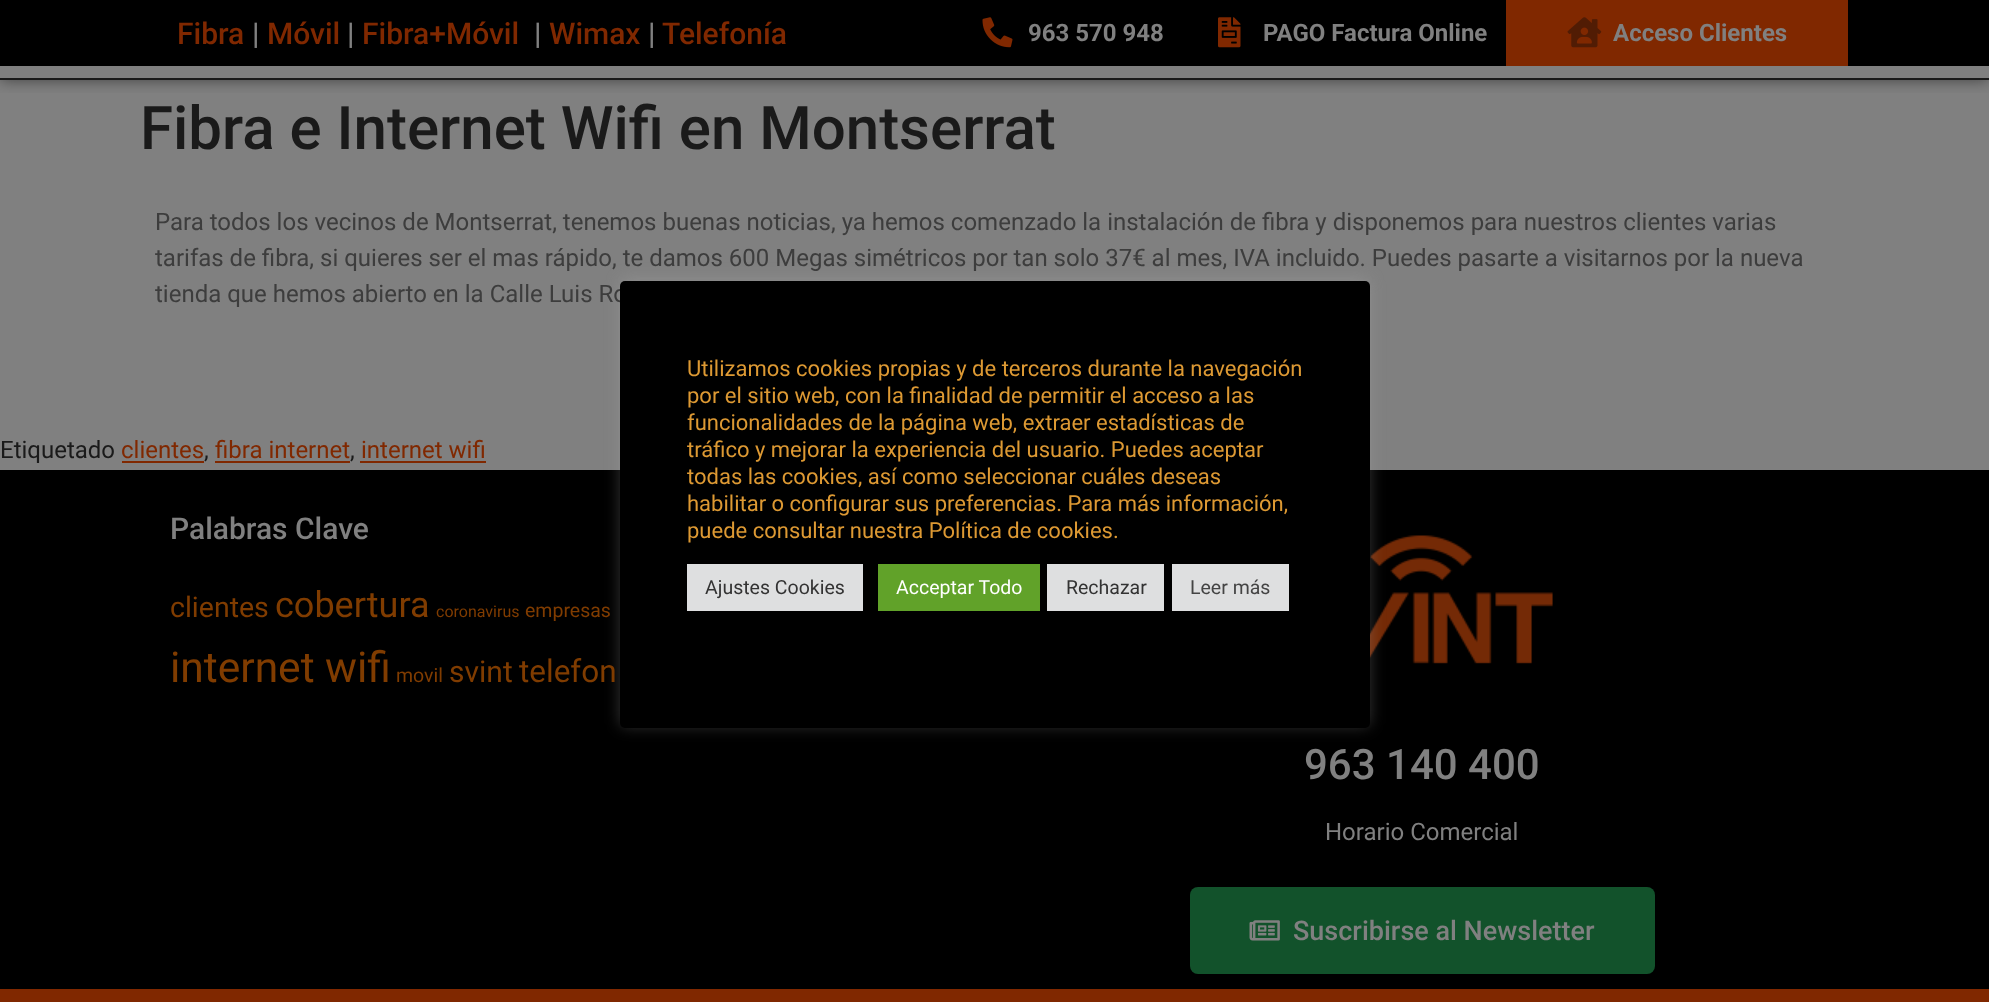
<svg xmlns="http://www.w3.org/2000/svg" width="1989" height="1002">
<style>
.a{font:500 30px Roboto;fill:#802800}
.b{font:500 30px Roboto;fill:#808080}
.c{font:bold 24px Roboto;fill:#808080}
.d{font:500 60px Roboto;fill:#1a1a1a}
.e{font:24px Roboto;fill:#3d3d3d}
.f{font:24px Roboto;fill:#1a1a1a}
.g{font:24px Roboto;fill:#802800}
.h{font:22px Roboto;fill:#d93}
.i{font:19.5px Roboto;fill:#333}
.j{font:19.5px Roboto;fill:#fff}
.k{font:19.5px Roboto;fill:#444}
.l{font:28.5px Roboto;fill:#803c00}
.m{font:36px Roboto;fill:#803c00}
.n{font:16px Roboto;fill:#803c00}
.o{font:19.5px Roboto;fill:#803c00}
.p{font:42.5px Roboto;fill:#803c00}
.q{font:30px Roboto;fill:#803c00}
.r{font:31.5px Roboto;fill:#803c00}
.s{font:500 42px Roboto;fill:#808080}
.t{font:24px Roboto;fill:#808080}
.u{font:500 27px Roboto;fill:#808080}
</style>
<defs>
<clipPath id="clip1"><path d="M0 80h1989v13H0z"/></clipPath>
</defs>
<rect width="100%" height="100%" fill="#808080"/>
<g clip-path="url(#clip1)">
<path fill="#00000080" filter="blur(7.5px)" d="M0 -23h1989v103H0z"/>
</g>
<path fill="#1a1a1a" d="M0 78h1989v2H0z"/>
<path fill="#000" d="M0 0h1989v66H0z"/>
<image href="1.png" x="982" y="17" width="31" height="31"/>
<image href="2.png" x="1218" y="17" width="23" height="31"/>
<path fill="#802800" d="M1506 0h342v66H1506z"/>
<image href="3.png" x="1567" y="17" width="35" height="31"/>
<path fill="#802800" d="M122 461h82v2H122z"/>
<path fill="#802800" d="M215 461h135v2H215z"/>
<path fill="#802800" d="M360 461h126v2H360z"/>
<path fill="#000" d="M0 470h1989v519H0z"/>
<image href="4.png" x="1370" y="535" width="183" height="129"/>
<rect fill="#acabab4d" filter="blur(7.5px)" x="620" y="279" width="750" height="447" rx="5"/>
<rect fill="#12522b" x="1190" y="887" width="465" height="87" rx="8"/>
<image href="5.png" x="1249" y="920" width="31" height="21"/>
<path fill="#802800" d="M0 989h1989v13H0z"/>
<text class="a" x="177" y="44">Fibra</text>
<text class="b" x="252" y="44">|</text>
<text class="a" x="267" y="44">Móvil</text>
<text class="b" x="347" y="44">|</text>
<text class="a" x="362" y="44">Fibra+Móvil</text>
<text class="b" x="534" y="44">|</text>
<text class="a" x="549" y="44">Wimax</text>
<text class="b" x="648" y="44">|</text>
<text class="a" x="662" y="44">Telefonía</text>
<text class="c" x="1028" y="41">963 570 948</text>
<text class="c" x="1263" y="41">PAGO Factura Online</text>
<text class="c" x="1613" y="41">Acceso Clientes</text>
<text class="d" x="140" y="149">Fibra e Internet Wifi en Montserrat</text>
<text class="e" x="155" y="230">Para todos los vecinos de Montserrat, tenemos buenas noticias, ya hemos comenzado la instalación de fibra y disponemos para nuestros clientes varias</text>
<text class="e" x="155" y="266">tarifas de fibra, si quieres ser el mas rápido, te damos 600 Megas simétricos por tan solo 37€ al mes, IVA incluido. Puedes pasarte a visitarnos por la nueva</text>
<text class="e" x="155" y="302">tienda que hemos abierto en la Calle Luis Ro</text>
<text class="f" x="0" y="458">Etiquetado</text>
<text class="g" x="121" y="458">clientes</text>
<text class="f" x="204" y="458">,</text>
<text class="g" x="215" y="458">fibra internet</text>
<text class="f" x="350" y="458">,</text>
<text class="g" x="361" y="458">internet wifi</text>
<rect fill="#000" x="620" y="281" width="750" height="447" rx="5"/>
<text class="h" x="687" y="376">Utilizamos cookies propias y de terceros durante la navegación</text>
<text class="h" x="687" y="403">por el sitio web, con la finalidad de permitir el acceso a las</text>
<text class="h" x="687" y="430">funcionalidades de la página web, extraer estadísticas de</text>
<text class="h" x="687" y="457">tráfico y mejorar la experiencia del usuario. Puedes aceptar</text>
<text class="h" x="687" y="484">todas las cookies, así como seleccionar cuáles deseas</text>
<text class="h" x="687" y="511">habilitar o configurar sus preferencias. Para más información,</text>
<text class="h" x="687" y="538">puede consultar nuestra Política de cookies.</text>
<path fill="#dedfe0" d="M687 564h176v47H687z"/>
<text class="i" x="705" y="594">Ajustes Cookies</text>
<path fill="#61a229" d="M878 564h162v47H878z"/>
<text class="j" x="896" y="594">Acceptar Todo</text>
<path fill="#dedfe0" d="M1047 564h117v47H1047z"/>
<text class="i" x="1066" y="594">Rechazar</text>
<path fill="#dedfe0" d="M1172 564h117v47H1172z"/>
<text class="k" x="1190" y="594">Leer más</text>
<text class="b" x="170" y="539">Palabras Clave</text>
<text class="l" x="170" y="617">clientes</text>
<text class="m" x="275" y="617">cobertura</text>
<text class="n" x="436" y="617">coronavirus</text>
<text class="o" x="525" y="617">empresas</text>
<text class="p" x="170" y="682">internet wifi</text>
<text class="o" x="396" y="682">movil</text>
<text class="q" x="449" y="682">svint</text>
<text class="r" x="519" y="682">telefon</text>
<text class="s" x="1304" y="779">963 140 400</text>
<text class="t" x="1325" y="840">Horario Comercial</text>
<text class="u" x="1293" y="940">Suscribirse al Newsletter</text>
</svg>
